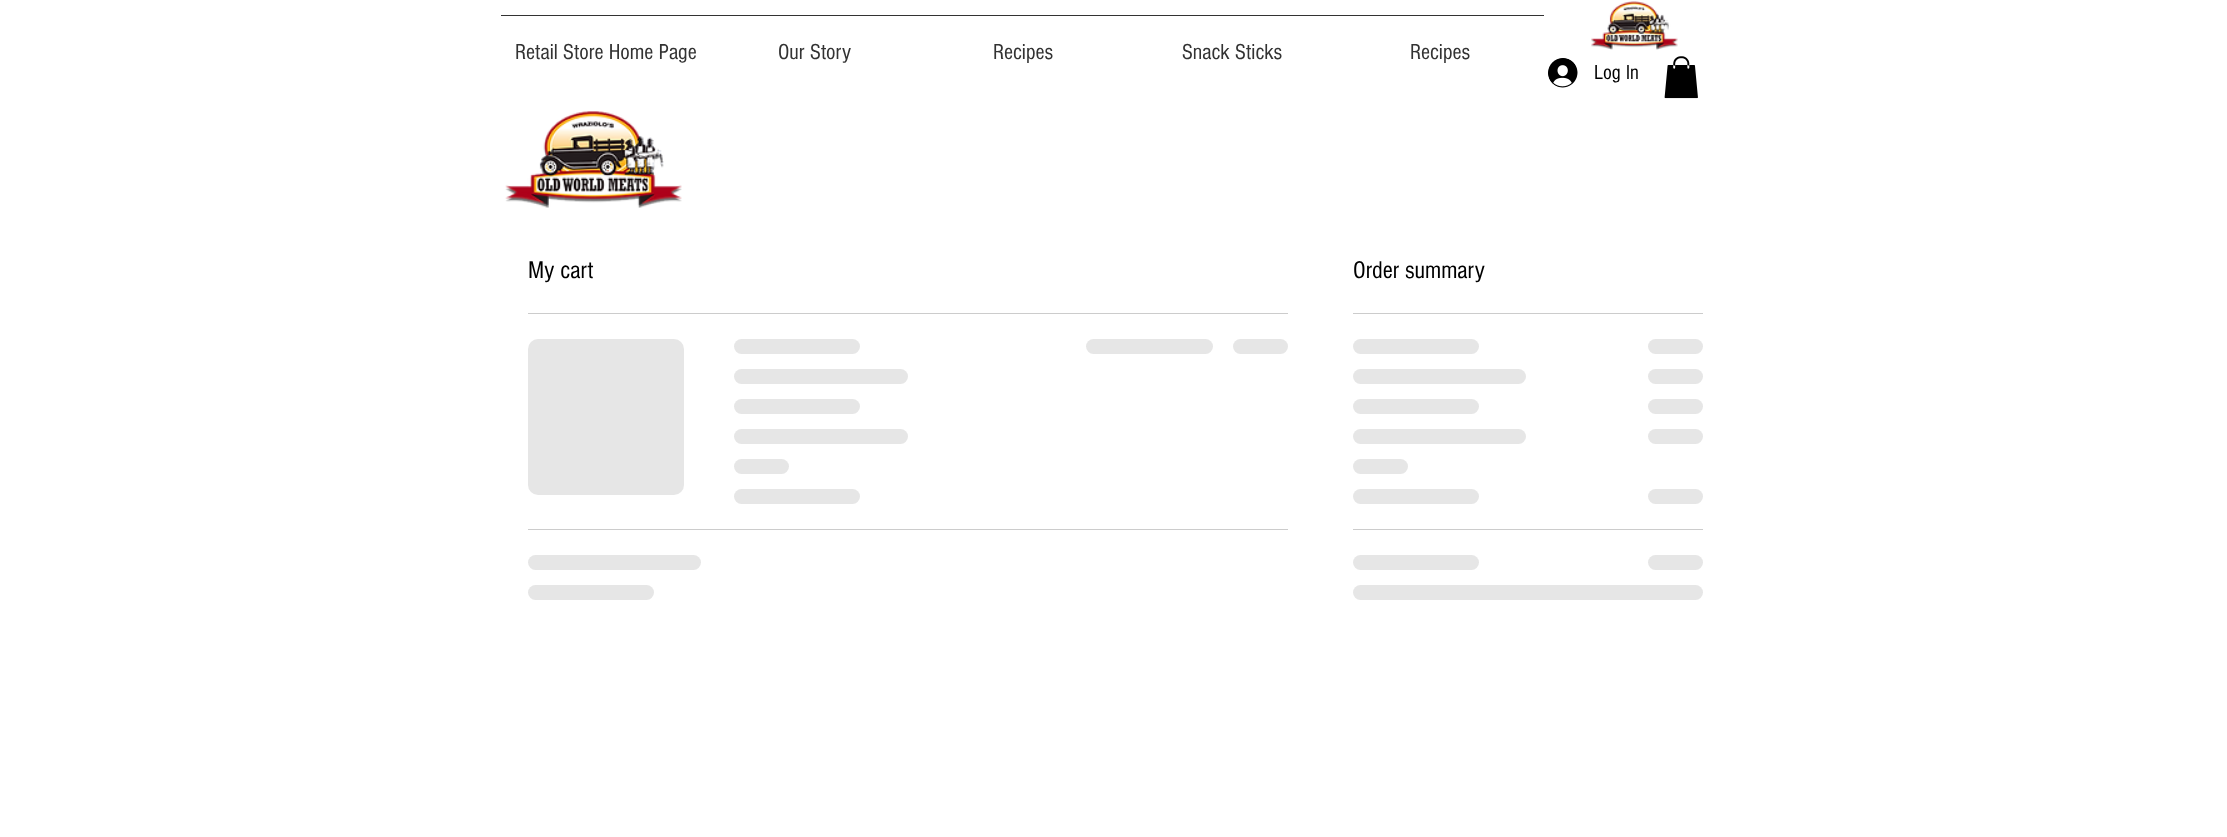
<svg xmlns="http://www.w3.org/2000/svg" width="2227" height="837">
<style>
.a{font:22.5px 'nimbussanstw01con';fill:#333}
.b{font:21px 'nimbussanstw01con';fill:#000}
.c{font:25px 'nimbussanstw01con';fill:#000}
</style>
<defs>
<linearGradient id="g1" gradientUnits="userSpaceOnUse" x1="528" y1="417" x2="1153" y2="417"><stop offset="0.25" stop-color="#e6e6e6"/><stop offset="0.37" stop-color="#ccc"/><stop offset="0.63" stop-color="#e6e6e6"/></linearGradient>
<linearGradient id="g2" gradientUnits="userSpaceOnUse" x1="734" y1="346" x2="1239" y2="346"><stop offset="0.25" stop-color="#e6e6e6"/><stop offset="0.37" stop-color="#ccc"/><stop offset="0.63" stop-color="#e6e6e6"/></linearGradient>
<linearGradient id="g3" gradientUnits="userSpaceOnUse" x1="734" y1="376" x2="1429" y2="376"><stop offset="0.25" stop-color="#e6e6e6"/><stop offset="0.37" stop-color="#ccc"/><stop offset="0.63" stop-color="#e6e6e6"/></linearGradient>
<linearGradient id="g4" gradientUnits="userSpaceOnUse" x1="734" y1="406" x2="1239" y2="406"><stop offset="0.25" stop-color="#e6e6e6"/><stop offset="0.37" stop-color="#ccc"/><stop offset="0.63" stop-color="#e6e6e6"/></linearGradient>
<linearGradient id="g5" gradientUnits="userSpaceOnUse" x1="734" y1="436" x2="1429" y2="436"><stop offset="0.25" stop-color="#e6e6e6"/><stop offset="0.37" stop-color="#ccc"/><stop offset="0.63" stop-color="#e6e6e6"/></linearGradient>
<linearGradient id="g6" gradientUnits="userSpaceOnUse" x1="734" y1="466" x2="954" y2="466"><stop offset="0.25" stop-color="#e6e6e6"/><stop offset="0.37" stop-color="#ccc"/><stop offset="0.63" stop-color="#e6e6e6"/></linearGradient>
<linearGradient id="g7" gradientUnits="userSpaceOnUse" x1="734" y1="496" x2="1239" y2="496"><stop offset="0.25" stop-color="#e6e6e6"/><stop offset="0.37" stop-color="#ccc"/><stop offset="0.63" stop-color="#e6e6e6"/></linearGradient>
<linearGradient id="g8" gradientUnits="userSpaceOnUse" x1="1086" y1="346" x2="1591" y2="346"><stop offset="0.25" stop-color="#e6e6e6"/><stop offset="0.37" stop-color="#ccc"/><stop offset="0.63" stop-color="#e6e6e6"/></linearGradient>
<linearGradient id="g9" gradientUnits="userSpaceOnUse" x1="1233" y1="346" x2="1453" y2="346"><stop offset="0.25" stop-color="#e6e6e6"/><stop offset="0.37" stop-color="#ccc"/><stop offset="0.63" stop-color="#e6e6e6"/></linearGradient>
<linearGradient id="g10" gradientUnits="userSpaceOnUse" x1="528" y1="563" x2="1223" y2="563"><stop offset="0.25" stop-color="#e6e6e6"/><stop offset="0.37" stop-color="#ccc"/><stop offset="0.63" stop-color="#e6e6e6"/></linearGradient>
<linearGradient id="g11" gradientUnits="userSpaceOnUse" x1="528" y1="593" x2="1033" y2="593"><stop offset="0.25" stop-color="#e6e6e6"/><stop offset="0.37" stop-color="#ccc"/><stop offset="0.63" stop-color="#e6e6e6"/></linearGradient>
<linearGradient id="g12" gradientUnits="userSpaceOnUse" x1="1353" y1="346" x2="1858" y2="346"><stop offset="0.25" stop-color="#e6e6e6"/><stop offset="0.37" stop-color="#ccc"/><stop offset="0.63" stop-color="#e6e6e6"/></linearGradient>
<linearGradient id="g13" gradientUnits="userSpaceOnUse" x1="1648" y1="346" x2="1868" y2="346"><stop offset="0.25" stop-color="#e6e6e6"/><stop offset="0.37" stop-color="#ccc"/><stop offset="0.63" stop-color="#e6e6e6"/></linearGradient>
<linearGradient id="g14" gradientUnits="userSpaceOnUse" x1="1353" y1="376" x2="2048" y2="376"><stop offset="0.25" stop-color="#e6e6e6"/><stop offset="0.37" stop-color="#ccc"/><stop offset="0.63" stop-color="#e6e6e6"/></linearGradient>
<linearGradient id="g15" gradientUnits="userSpaceOnUse" x1="1648" y1="376" x2="1868" y2="376"><stop offset="0.25" stop-color="#e6e6e6"/><stop offset="0.37" stop-color="#ccc"/><stop offset="0.63" stop-color="#e6e6e6"/></linearGradient>
<linearGradient id="g16" gradientUnits="userSpaceOnUse" x1="1353" y1="406" x2="1858" y2="406"><stop offset="0.25" stop-color="#e6e6e6"/><stop offset="0.37" stop-color="#ccc"/><stop offset="0.63" stop-color="#e6e6e6"/></linearGradient>
<linearGradient id="g17" gradientUnits="userSpaceOnUse" x1="1648" y1="406" x2="1868" y2="406"><stop offset="0.25" stop-color="#e6e6e6"/><stop offset="0.37" stop-color="#ccc"/><stop offset="0.63" stop-color="#e6e6e6"/></linearGradient>
<linearGradient id="g18" gradientUnits="userSpaceOnUse" x1="1353" y1="436" x2="2048" y2="436"><stop offset="0.25" stop-color="#e6e6e6"/><stop offset="0.37" stop-color="#ccc"/><stop offset="0.63" stop-color="#e6e6e6"/></linearGradient>
<linearGradient id="g19" gradientUnits="userSpaceOnUse" x1="1648" y1="436" x2="1868" y2="436"><stop offset="0.25" stop-color="#e6e6e6"/><stop offset="0.37" stop-color="#ccc"/><stop offset="0.63" stop-color="#e6e6e6"/></linearGradient>
<linearGradient id="g20" gradientUnits="userSpaceOnUse" x1="1353" y1="466" x2="1573" y2="466"><stop offset="0.25" stop-color="#e6e6e6"/><stop offset="0.37" stop-color="#ccc"/><stop offset="0.63" stop-color="#e6e6e6"/></linearGradient>
<linearGradient id="g21" gradientUnits="userSpaceOnUse" x1="1353" y1="496" x2="1858" y2="496"><stop offset="0.25" stop-color="#e6e6e6"/><stop offset="0.37" stop-color="#ccc"/><stop offset="0.63" stop-color="#e6e6e6"/></linearGradient>
<linearGradient id="g22" gradientUnits="userSpaceOnUse" x1="1648" y1="496" x2="1868" y2="496"><stop offset="0.25" stop-color="#e6e6e6"/><stop offset="0.37" stop-color="#ccc"/><stop offset="0.63" stop-color="#e6e6e6"/></linearGradient>
<linearGradient id="g23" gradientUnits="userSpaceOnUse" x1="1353" y1="563" x2="1858" y2="563"><stop offset="0.25" stop-color="#e6e6e6"/><stop offset="0.37" stop-color="#ccc"/><stop offset="0.63" stop-color="#e6e6e6"/></linearGradient>
<linearGradient id="g24" gradientUnits="userSpaceOnUse" x1="1648" y1="563" x2="1868" y2="563"><stop offset="0.25" stop-color="#e6e6e6"/><stop offset="0.37" stop-color="#ccc"/><stop offset="0.63" stop-color="#e6e6e6"/></linearGradient>
<linearGradient id="g25" gradientUnits="userSpaceOnUse" x1="1353" y1="593" x2="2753" y2="592"><stop offset="0.25" stop-color="#e6e6e6"/><stop offset="0.37" stop-color="#ccc"/><stop offset="0.63" stop-color="#e6e6e6"/></linearGradient>
</defs>
<rect width="100%" height="100%" fill="#fff"/>
<image href="1.png" x="1591" y="1" width="87" height="49"/>
<path fill="#333" d="M501 15h1043v1H501z"/>
<image href="2.png" x="1548" y="58" width="30" height="30"/>
<image href="3.png" x="1664" y="56" width="34" height="43"/>
<image href="4.png" x="505" y="111" width="177" height="97"/>
<path fill="#ccc" d="M528 313h760v1H528z"/>
<rect fill="url(#g1)" x="528" y="339" width="156" height="156" rx="10"/>
<rect fill="url(#g2)" x="734" y="339" width="126" height="15" rx="7.5"/>
<rect fill="url(#g3)" x="734" y="369" width="174" height="15" rx="7.5"/>
<rect fill="url(#g4)" x="734" y="399" width="126" height="15" rx="7.5"/>
<rect fill="url(#g5)" x="734" y="429" width="174" height="15" rx="7.5"/>
<rect fill="url(#g6)" x="734" y="459" width="55" height="15" rx="7.5"/>
<rect fill="url(#g7)" x="734" y="489" width="126" height="15" rx="7.5"/>
<rect fill="url(#g8)" x="1086" y="339" width="127" height="15" rx="7.5"/>
<rect fill="url(#g9)" x="1233" y="339" width="55" height="15" rx="7.5"/>
<path fill="#ccc" d="M528 529h760v1H528z"/>
<rect fill="url(#g10)" x="528" y="555" width="173" height="15" rx="7.5"/>
<rect fill="url(#g11)" x="528" y="585" width="126" height="15" rx="7.5"/>
<path fill="#ccc" d="M1353 313h350v1H1353z"/>
<rect fill="url(#g12)" x="1353" y="339" width="126" height="15" rx="7.5"/>
<rect fill="url(#g13)" x="1648" y="339" width="55" height="15" rx="7.5"/>
<rect fill="url(#g14)" x="1353" y="369" width="173" height="15" rx="7.5"/>
<rect fill="url(#g15)" x="1648" y="369" width="55" height="15" rx="7.5"/>
<rect fill="url(#g16)" x="1353" y="399" width="126" height="15" rx="7.5"/>
<rect fill="url(#g17)" x="1648" y="399" width="55" height="15" rx="7.5"/>
<rect fill="url(#g18)" x="1353" y="429" width="173" height="15" rx="7.5"/>
<rect fill="url(#g19)" x="1648" y="429" width="55" height="15" rx="7.5"/>
<rect fill="url(#g20)" x="1353" y="459" width="55" height="15" rx="7.5"/>
<rect fill="url(#g21)" x="1353" y="489" width="126" height="15" rx="7.5"/>
<rect fill="url(#g22)" x="1648" y="489" width="55" height="15" rx="7.5"/>
<path fill="#ccc" d="M1353 529h350v1H1353z"/>
<rect fill="url(#g23)" x="1353" y="555" width="126" height="15" rx="7.5"/>
<rect fill="url(#g24)" x="1648" y="555" width="55" height="15" rx="7.5"/>
<rect fill="url(#g25)" x="1353" y="585" width="350" height="15" rx="7.5"/>
<text class="a" x="515" y="59">Retail Store Home Page</text>
<text class="a" x="778" y="59">Our Story</text>
<text class="a" x="993" y="59">Recipes</text>
<text class="a" x="1182" y="59">Snack Sticks</text>
<text class="a" x="1410" y="59">Recipes</text>
<text class="b" x="1594" y="79">Log In</text>
<text class="c" x="528" y="278">My cart</text>
<text class="c" x="1353" y="278">Order summary</text>
</svg>
